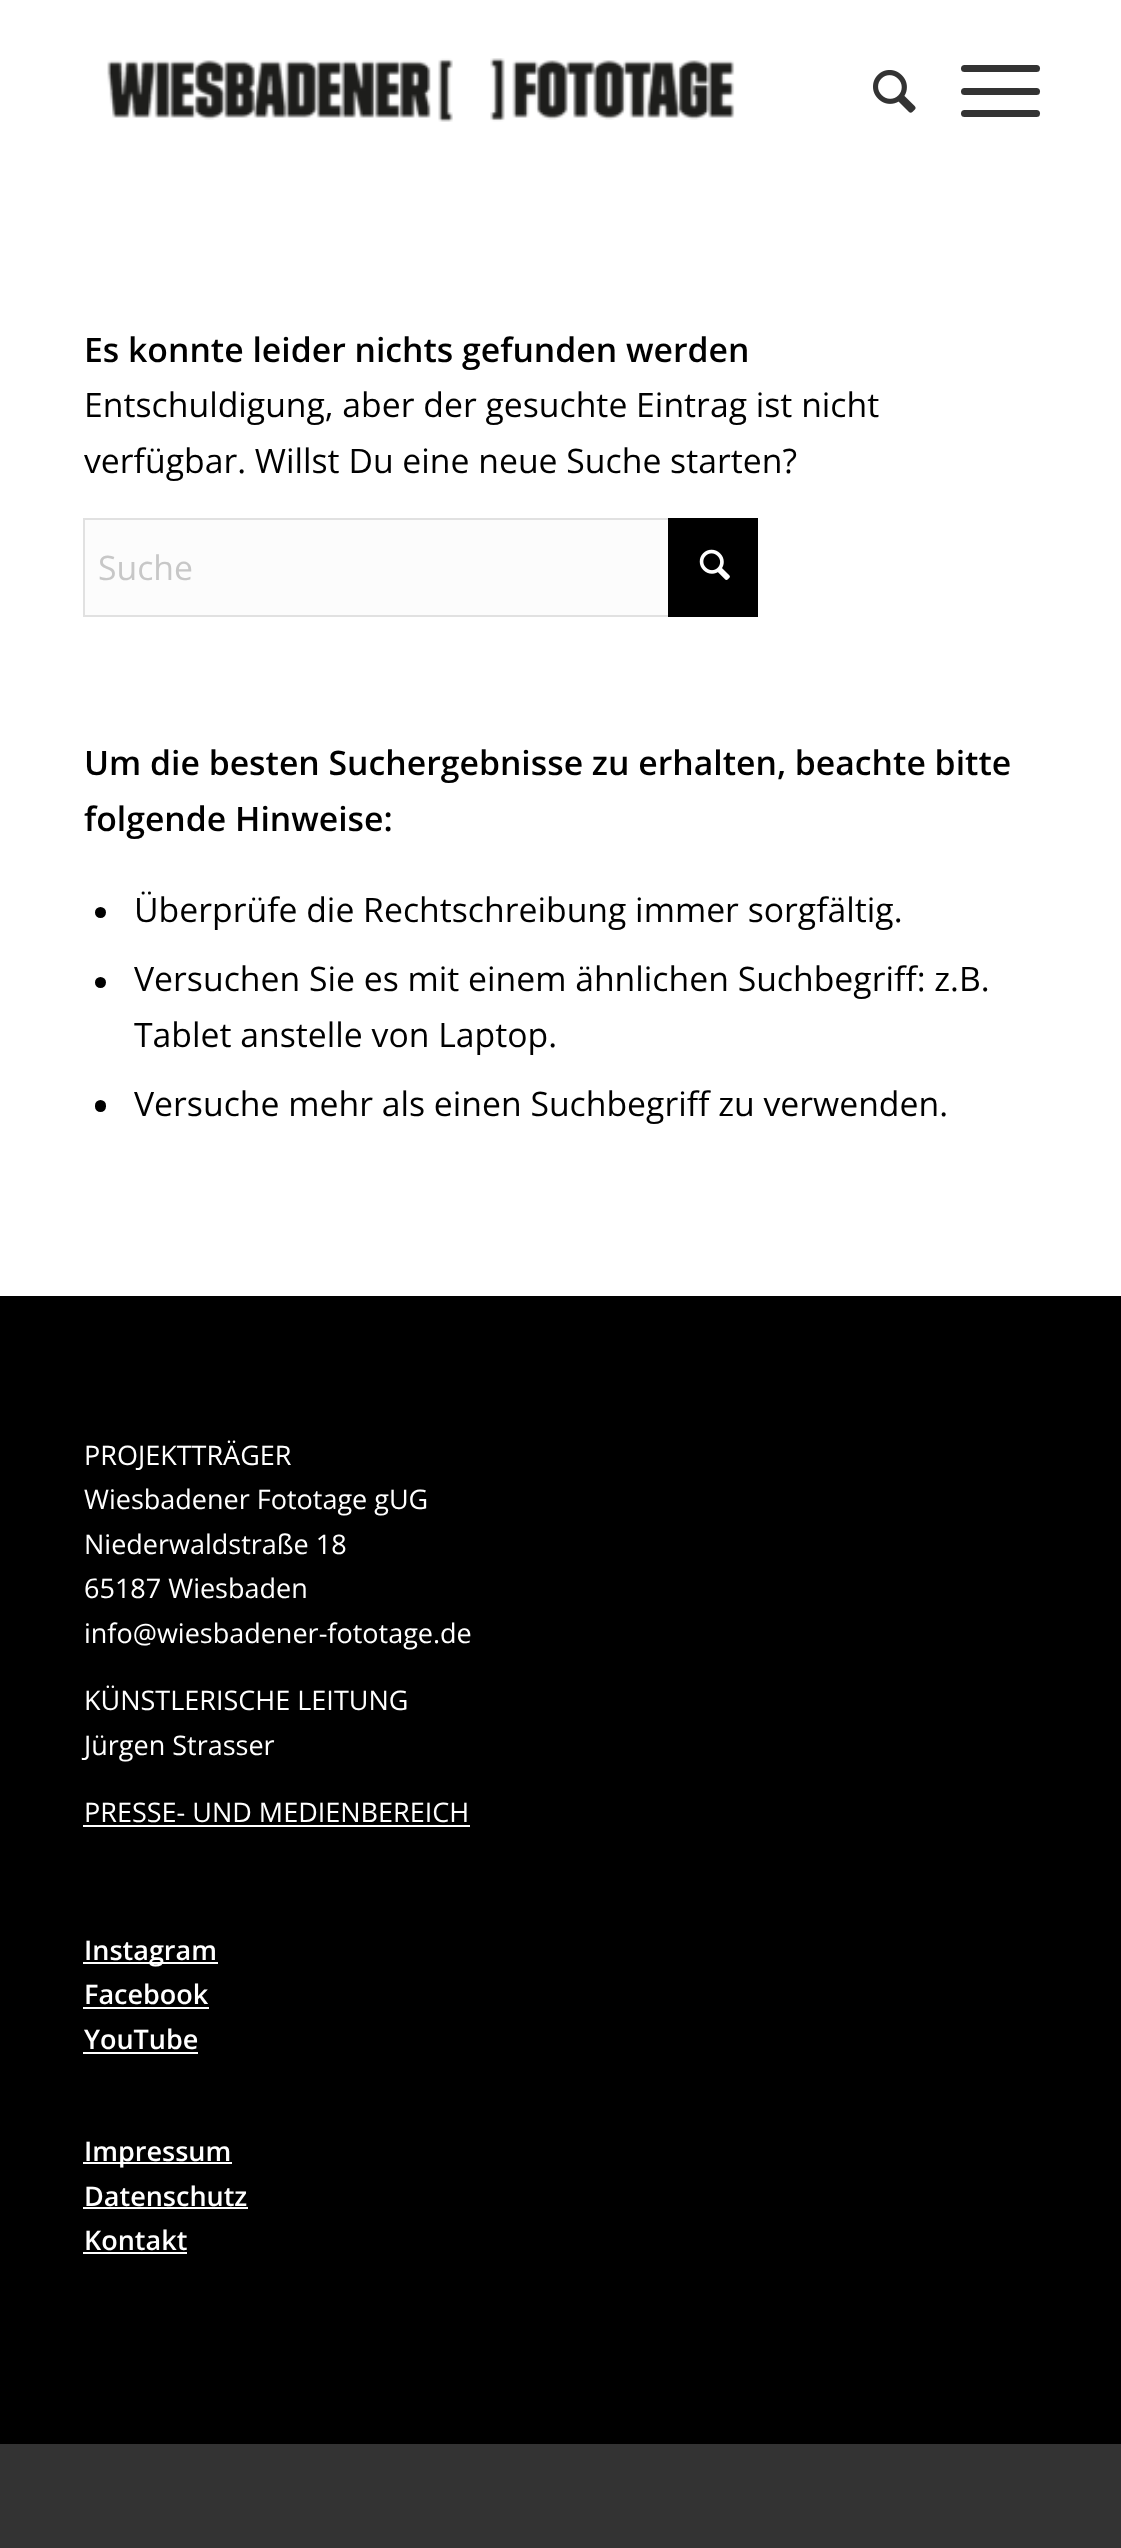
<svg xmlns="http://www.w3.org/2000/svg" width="1121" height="2548">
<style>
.a{font:600 33.75px Open Sans;fill:#000}
.b{font:33.75px Open Sans;fill:#000}
.c{font:33.75px Open Sans;fill:#c7c7c7}
.d{font:27px Open Sans;fill:#fff}
.e{font:600 27px Open Sans;fill:#fff}
</style>
<rect width="100%" height="100%" fill="#333"/>
<path fill="#fff" d="M0 0h1121v1296H0z"/>
<image href="1.png" x="107" y="58" width="628" height="64"/>
<image href="2.png" x="873" y="70" width="43" height="43"/>
<rect fill="#333" x="961" y="88" width="79" height="7" rx="3.5"/>
<rect fill="#333" x="961" y="65" width="79" height="7" rx="3.5"/>
<rect fill="#333" x="961" y="110" width="79" height="7" rx="3.5"/>
<path fill="#fcfcfc" d="M85 520h583v95H85z"/>
<path fill="none" stroke="#e1e1e1" stroke-width="2" d="M84 519h673v97H84z"/>
<path fill="#000" d="M668 518h90v99H668z"/>
<image href="3.png" x="699" y="549" width="31" height="31"/>
<circle fill="#000" cx="100.5" cy="912.5" r="5.5"/>
<circle fill="#000" cx="100.5" cy="982.5" r="5.5"/>
<rect fill="#000" x="95" y="1100" width="11" height="12" rx="5.5"/>
<path fill="#000" d="M0 1296h1121v1148H0z"/>
<path fill="#fff" d="M83 1825h387v2H83z"/>
<path fill="#fff" d="M83 1962h135v2H83z"/>
<path fill="#fff" d="M83 2007h126v2H83z"/>
<path fill="#fff" d="M83 2052h115v2H83z"/>
<path fill="#fff" d="M83 2162h149v2H83z"/>
<path fill="#fff" d="M83 2207h165v2H83z"/>
<path fill="#fff" d="M83 2252h104v2H83z"/>
<text class="a" x="84" y="362">Es konnte leider nichts gefunden werden</text>
<text class="b" x="84" y="417">Entschuldigung, aber der gesuchte Eintrag ist nicht</text>
<text class="b" x="84" y="473">verfügbar. Willst Du eine neue Suche starten?</text>
<text class="c" x="98" y="580">Suche</text>
<text class="a" x="84" y="775">Um die besten Suchergebnisse zu erhalten, beachte bitte</text>
<text class="a" x="84" y="831">folgende Hinweise:</text>
<text class="b" x="134" y="922">Überprüfe die Rechtschreibung immer sorgfältig.</text>
<text class="b" x="134" y="991">Versuchen Sie es mit einem ähnlichen Suchbegriff: z.B.</text>
<text class="b" x="134" y="1047">Tablet anstelle von Laptop.</text>
<text class="b" x="134" y="1116">Versuche mehr als einen Suchbegriff zu verwenden.</text>
<text class="d" x="84" y="1465">PROJEKTTRÄGER</text>
<text class="d" x="84" y="1509">Wiesbadener Fototage gUG</text>
<text class="d" x="84" y="1554">Niederwaldstraße 18</text>
<text class="d" x="84" y="1598">65187 Wiesbaden</text>
<text class="d" x="84" y="1643">info@wiesbadener-fototage.de</text>
<text class="d" x="84" y="1710">KÜNSTLERISCHE LEITUNG</text>
<text class="d" x="84" y="1755">Jürgen Strasser</text>
<text class="d" x="84" y="1822">PRESSE- UND MEDIENBEREICH</text>
<text class="e" x="84" y="1960">Instagram</text>
<text class="e" x="84" y="2004">Facebook</text>
<text class="e" x="84" y="2049">YouTube</text>
<text class="e" x="84" y="2161">Impressum</text>
<text class="e" x="84" y="2206">Datenschutz</text>
<text class="e" x="84" y="2250">Kontakt</text>
</svg>
